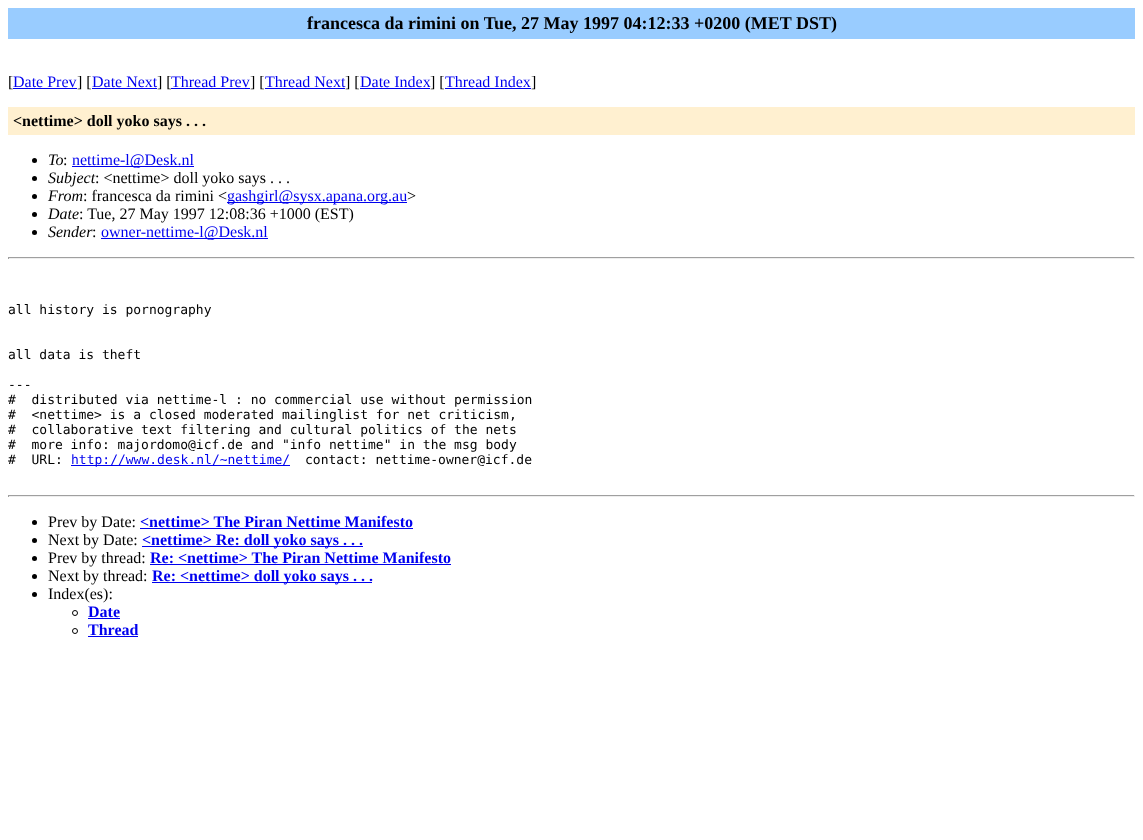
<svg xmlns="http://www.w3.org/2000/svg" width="1143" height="840">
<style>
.a{font:bold 18px Liberation Serif;fill:#000}
.b{font:16px Liberation Serif;fill:#000}
.c{font:16px Liberation Serif;fill:#00e}
.d{font:bold 16px Liberation Serif;fill:#000}
.e{font:italic 16px Liberation Serif;fill:#000}
.f{font:13px DejaVu Sans Mono;fill:#000}
.g{font:13px DejaVu Sans Mono;fill:#00e}
.h{font:bold 16px Liberation Serif;fill:#00e}
</style>
<rect width="100%" height="100%" fill="#fff"/>
<path fill="#9cf" d="M8 8h1127v31H8z"/>
<path fill="#00e" d="M13 88h64v1H13z"/>
<path fill="#00e" d="M92 88h65v1H92z"/>
<path fill="#00e" d="M171 88h79v1H171z"/>
<path fill="#00e" d="M265 88h80v1H265z"/>
<path fill="#00e" d="M360 88h70v1H360z"/>
<path fill="#00e" d="M445 88h86v1H445z"/>
<path fill="#fff0d0" d="M8 107h1127v28H8z"/>
<circle fill="#000" cx="34.5" cy="160.5" r="2.5"/>
<path fill="#00e" d="M72 166h122v1H72z"/>
<circle fill="#000" cx="34.5" cy="178.5" r="2.5"/>
<circle fill="#000" cx="34.5" cy="196.5" r="2.5"/>
<path fill="#00e" d="M227 202h180v1H227z"/>
<circle fill="#000" cx="34.5" cy="214.5" r="2.5"/>
<circle fill="#000" cx="34.5" cy="232.5" r="2.5"/>
<path fill="#00e" d="M101 238h167v1H101z"/>
<path fill="#9f9f9f" d="M8 257h1127v1H8z"/>
<path fill="#eee" d="M1134 257h1v2H1134z"/>
<path fill="#eee" d="M8 258h1127v1H8z"/>
<path fill="#9f9f9f" d="M8 257h1v2H8z"/>
<path fill="#00e" d="M71 465h219v1H71z"/>
<path fill="#9f9f9f" d="M8 495h1127v1H8z"/>
<path fill="#eee" d="M1134 495h1v2H1134z"/>
<path fill="#eee" d="M8 496h1127v1H8z"/>
<path fill="#9f9f9f" d="M8 495h1v2H8z"/>
<circle fill="#000" cx="34.5" cy="522.5" r="2.5"/>
<path fill="#00e" d="M140 528h273v1H140z"/>
<circle fill="#000" cx="34.5" cy="540.5" r="2.5"/>
<path fill="#00e" d="M142 546h221v1H142z"/>
<circle fill="#000" cx="34.5" cy="558.5" r="2.5"/>
<path fill="#00e" d="M150 564h301v1H150z"/>
<circle fill="#000" cx="34.5" cy="576.5" r="2.5"/>
<path fill="#00e" d="M152 582h220v1H152z"/>
<circle fill="#000" cx="34.5" cy="594.5" r="2.5"/>
<circle fill="none" stroke="#000" cx="75" cy="613" r="2.5"/>
<path fill="#00e" d="M88 618h32v1H88z"/>
<circle fill="none" stroke="#000" cx="75" cy="631" r="2.5"/>
<path fill="#00e" d="M88 636h50v1H88z"/>
<text class="a" x="307" y="29">francesca da rimini on Tue, 27 May 1997 04:12:33 +0200 (MET DST)</text>
<text class="b" x="8" y="87">[</text>
<text class="c" x="13" y="87">Date Prev</text>
<text class="b" x="77" y="87">] [</text>
<text class="c" x="92" y="87">Date Next</text>
<text class="b" x="157" y="87">] [</text>
<text class="c" x="171" y="87">Thread Prev</text>
<text class="b" x="250" y="87">] [</text>
<text class="c" x="265" y="87">Thread Next</text>
<text class="b" x="345" y="87">] [</text>
<text class="c" x="360" y="87">Date Index</text>
<text class="b" x="430" y="87">] [</text>
<text class="c" x="445" y="87">Thread Index</text>
<text class="b" x="531" y="87">]</text>
<text class="d" x="13" y="126">&lt;nettime&gt; doll yoko says . . .</text>
<text class="e" x="48" y="165">To</text>
<text class="b" x="63" y="165">:</text>
<text class="c" x="72" y="165">nettime-l@Desk.nl</text>
<text class="e" x="48" y="183">Subject</text>
<text class="b" x="95" y="183">: &lt;nettime&gt; doll yoko says . . .</text>
<text class="e" x="48" y="201">From</text>
<text class="b" x="83" y="201">: francesca da rimini &lt;</text>
<text class="c" x="227" y="201">gashgirl@sysx.apana.org.au</text>
<text class="b" x="407" y="201">&gt;</text>
<text class="e" x="48" y="219">Date</text>
<text class="b" x="79" y="219">: Tue, 27 May 1997 12:08:36 +1000 (EST)</text>
<text class="e" x="48" y="237">Sender</text>
<text class="b" x="92" y="237">:</text>
<text class="c" x="101" y="237">owner-nettime-l@Desk.nl</text>
<text class="f" x="8" y="314">all history is pornography</text>
<text class="f" x="8" y="359">all data is theft</text>
<text class="f" x="8" y="389">---</text>
<text class="f" xml:space="preserve" x="8" y="404">#  distributed via nettime-l : no commercial use without permission</text>
<text class="f" xml:space="preserve" x="8" y="419">#  &lt;nettime&gt; is a closed moderated mailinglist for net criticism,</text>
<text class="f" xml:space="preserve" x="8" y="434">#  collaborative text filtering and cultural politics of the nets</text>
<text class="f" xml:space="preserve" x="8" y="449">#  more info: majordomo@icf.de and "info nettime" in the msg body</text>
<text class="f" xml:space="preserve" x="8" y="464">#  URL:</text>
<text class="g" x="71" y="464">http://www.desk.nl/~nettime/</text>
<text class="f" x="305" y="464">contact: nettime-owner@icf.de</text>
<text class="b" x="48" y="527">Prev by Date:</text>
<text class="h" x="140" y="527">&lt;nettime&gt; The Piran Nettime Manifesto</text>
<text class="b" x="48" y="545">Next by Date:</text>
<text class="h" x="142" y="545">&lt;nettime&gt; Re: doll yoko says . . .</text>
<text class="b" x="48" y="563">Prev by thread:</text>
<text class="h" x="150" y="563">Re: &lt;nettime&gt; The Piran Nettime Manifesto</text>
<text class="b" x="48" y="581">Next by thread:</text>
<text class="h" x="152" y="581">Re: &lt;nettime&gt; doll yoko says . . .</text>
<text class="b" x="48" y="599">Index(es):</text>
<text class="h" x="88" y="617">Date</text>
<text class="h" x="88" y="635">Thread</text>
</svg>
